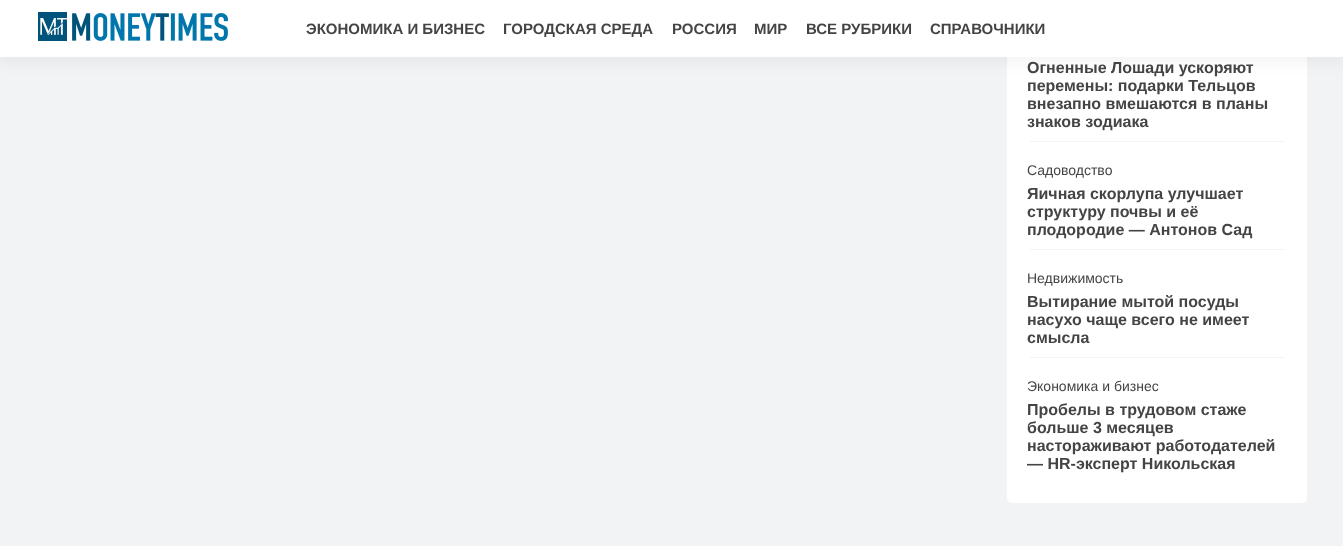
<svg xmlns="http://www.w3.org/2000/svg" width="1343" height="546">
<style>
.a{font:bold 15px Liberation Sans;fill:#444}
.b{font:bold 16px Liberation Sans;fill:#444}
.c{font:14px Liberation Sans;fill:#444}
</style>
<rect width="100%" height="100%" fill="#f1f3f5"/>
<rect fill="#fff" x="1007" y="-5" width="300" height="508" rx="5"/>
<path fill="#0000000d" filter="blur(7.5px)" d="M-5 -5h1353v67H-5z"/>
<path fill="#fff" d="M0 0h1343v57H0z"/>
<image href="1.png" x="38" y="12" width="190" height="29"/>
<path fill="#f1f3f5" d="M1030 141h255v1H1030z"/>
<path fill="#f1f3f5" d="M1030 249h255v1H1030z"/>
<path fill="#f1f3f5" d="M1030 357h255v1H1030z"/>
<text class="a" x="306" y="34">ЭКОНОМИКА И БИЗНЕС</text>
<text class="a" x="503" y="34">ГОРОДСКАЯ СРЕДА</text>
<text class="a" x="672" y="34">РОССИЯ</text>
<text class="a" x="754" y="34">МИР</text>
<text class="a" x="806" y="34">ВСЕ РУБРИКИ</text>
<text class="a" x="930" y="34">СПРАВОЧНИКИ</text>
<text class="b" x="1027" y="73">Огненные Лошади ускоряют</text>
<text class="b" x="1027" y="91">перемены: подарки Тельцов</text>
<text class="b" x="1027" y="109">внезапно вмешаются в планы</text>
<text class="b" x="1027" y="127">знаков зодиака</text>
<text class="c" x="1027" y="175">Садоводство</text>
<text class="b" x="1027" y="199">Яичная скорлупа улучшает</text>
<text class="b" x="1027" y="217">структуру почвы и её</text>
<text class="b" x="1027" y="235">плодородие — Антонов Сад</text>
<text class="c" x="1027" y="283">Недвижимость</text>
<text class="b" x="1027" y="307">Вытирание мытой посуды</text>
<text class="b" x="1027" y="325">насухо чаще всего не имеет</text>
<text class="b" x="1027" y="343">смысла</text>
<text class="c" x="1027" y="391">Экономика и бизнес</text>
<text class="b" x="1027" y="415">Пробелы в трудовом стаже</text>
<text class="b" x="1027" y="433">больше 3 месяцев</text>
<text class="b" x="1027" y="451">настораживают работодателей</text>
<text class="b" x="1027" y="469">— HR-эксперт Никольская</text>
</svg>
